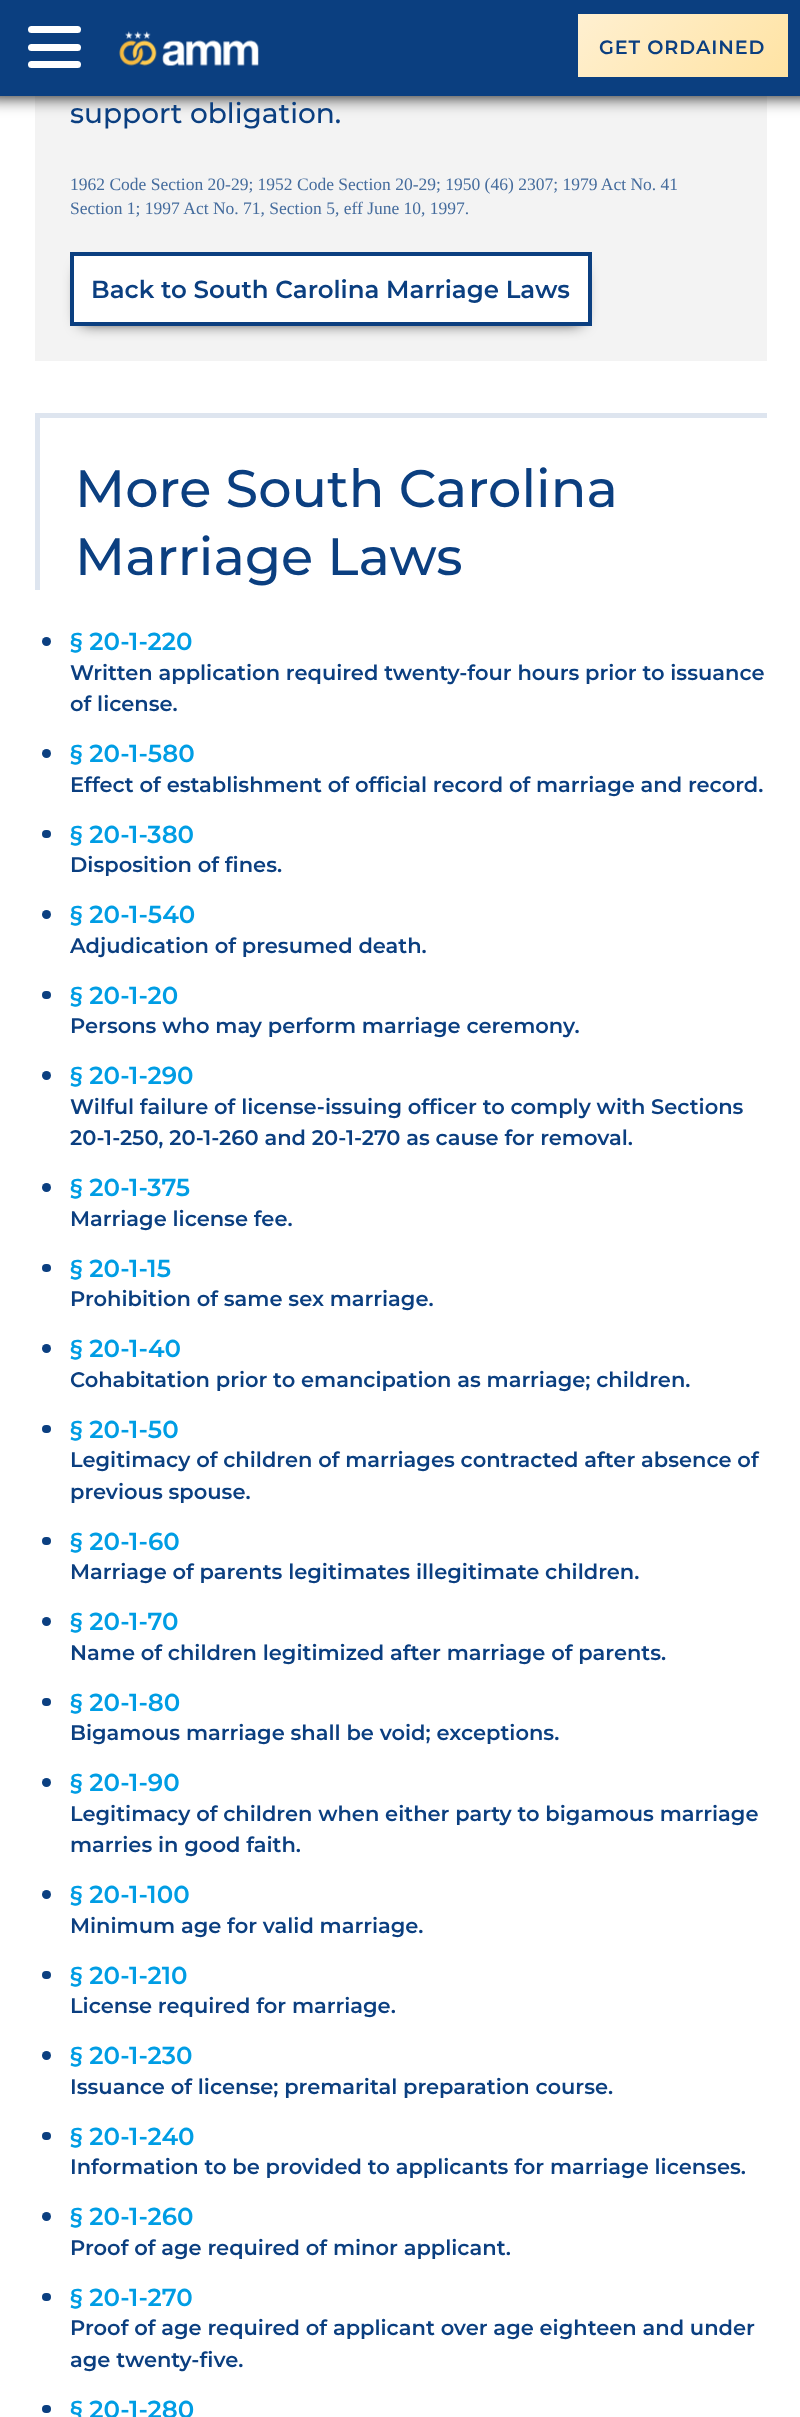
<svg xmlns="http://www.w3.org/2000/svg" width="800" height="2417">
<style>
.a{font:600 19.25px Montserrat;letter-spacing:0.9px;fill:#0b3f80}
.b{font:500 28px Montserrat;fill:#0b3f80}
.c{font:17.5px Liberation Serif;fill:#456c9d}
.d{font:600 24.5px Montserrat;fill:#0b3f80}
.e{font:500 52.5px Montserrat;fill:#0b3f80}
.f{font:600 24.5px Montserrat;fill:#009de4}
.g{font:600 21px Montserrat;fill:#0b3f80}
</style>
<defs>
<linearGradient id="g1" gradientUnits="userSpaceOnUse" x1="614" y1="-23" x2="751" y2="114"><stop offset="0" stop-color="#fff0d1"/><stop offset="1" stop-color="#ffe3a3"/></linearGradient>
</defs>
<rect width="100%" height="100%" fill="#fff"/>
<path fill="#f3f3f3" d="M35 96h732v265H35z"/>
<path fill="#000" filter="blur(9px)" d="M-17 -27h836v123H-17z"/>
<path fill="#0b3f80" d="M0 0h800v96H0z"/>
<rect fill="#fff" x="28" y="61" width="53" height="7" rx="3.5"/>
<rect fill="#fff" x="28" y="26" width="53" height="7" rx="3.5"/>
<rect fill="#fff" x="28" y="44" width="53" height="7" rx="3.5"/>
<image href="1.png" x="119" y="31" width="140" height="35"/>
<path fill="url(#g1)" d="M578 14h210v63H578z"/>
<path fill="#000" filter="blur(8px)" d="M81 270h500v52H81z"/>
<path fill="#fff" stroke="#0b3f80" stroke-width="4" d="M72 254h518v70H72z"/>
<path fill="#dee5ef" d="M35 413h732v5H35z"/>
<path fill="#dee5ef" d="M35 413h5v177H35z"/>
<circle fill="#0b3f80" cx="46.5" cy="641.5" r="4.5"/>
<circle fill="#0b3f80" cx="46.5" cy="753.5" r="4.5"/>
<rect fill="#0b3f80" x="42" y="830" width="9" height="8" rx="4"/>
<circle fill="#0b3f80" cx="46.5" cy="914.5" r="4.5"/>
<rect fill="#0b3f80" x="42" y="991" width="9" height="8" rx="4"/>
<circle fill="#0b3f80" cx="46.5" cy="1075.5" r="4.5"/>
<circle fill="#0b3f80" cx="46.5" cy="1187.5" r="4.5"/>
<rect fill="#0b3f80" x="42" y="1264" width="9" height="8" rx="4"/>
<circle fill="#0b3f80" cx="46.5" cy="1348.5" r="4.5"/>
<rect fill="#0b3f80" x="42" y="1425" width="9" height="8" rx="4"/>
<rect fill="#0b3f80" x="42" y="1537" width="9" height="8" rx="4"/>
<circle fill="#0b3f80" cx="46.5" cy="1621.5" r="4.5"/>
<rect fill="#0b3f80" x="42" y="1698" width="9" height="8" rx="4"/>
<circle fill="#0b3f80" cx="46.5" cy="1782.5" r="4.5"/>
<circle fill="#0b3f80" cx="46.5" cy="1894.5" r="4.5"/>
<rect fill="#0b3f80" x="42" y="1971" width="9" height="8" rx="4"/>
<circle fill="#0b3f80" cx="46.5" cy="2055.5" r="4.5"/>
<rect fill="#0b3f80" x="42" y="2132" width="9" height="8" rx="4"/>
<circle fill="#0b3f80" cx="46.5" cy="2216.5" r="4.5"/>
<rect fill="#0b3f80" x="42" y="2293" width="9" height="8" rx="4"/>
<rect fill="#0b3f80" x="42" y="2405" width="9" height="8" rx="4"/>
<text class="a" x="599" y="54">GET ORDAINED</text>
<text class="b" x="70" y="123">support obligation.</text>
<text class="c" x="70" y="190">1962 Code Section 20-29; 1952 Code Section 20-29; 1950 (46) 2307; 1979 Act No. 41</text>
<text class="c" x="70" y="214">Section 1; 1997 Act No. 71, Section 5, eff June 10, 1997.</text>
<text class="d" x="91" y="298">Back to South Carolina Marriage Laws</text>
<text class="e" x="75" y="507">More South Carolina</text>
<text class="e" x="75" y="575">Marriage Laws</text>
<text class="f" x="70" y="650">§ 20-1-220</text>
<text class="g" x="70" y="680">Written application required twenty-four hours prior to issuance</text>
<text class="g" x="70" y="711">of license.</text>
<text class="f" x="70" y="762">§ 20-1-580</text>
<text class="g" x="70" y="792">Effect of establishment of official record of marriage and record.</text>
<text class="f" x="70" y="843">§ 20-1-380</text>
<text class="g" x="70" y="872">Disposition of fines.</text>
<text class="f" x="70" y="923">§ 20-1-540</text>
<text class="g" x="70" y="953">Adjudication of presumed death.</text>
<text class="f" x="70" y="1004">§ 20-1-20</text>
<text class="g" x="70" y="1033">Persons who may perform marriage ceremony.</text>
<text class="f" x="70" y="1084">§ 20-1-290</text>
<text class="g" x="70" y="1114">Wilful failure of license-issuing officer to comply with Sections</text>
<text class="g" x="70" y="1145">20-1-250, 20-1-260 and 20-1-270 as cause for removal.</text>
<text class="f" x="70" y="1196">§ 20-1-375</text>
<text class="g" x="70" y="1226">Marriage license fee.</text>
<text class="f" x="70" y="1277">§ 20-1-15</text>
<text class="g" x="70" y="1306">Prohibition of same sex marriage.</text>
<text class="f" x="70" y="1357">§ 20-1-40</text>
<text class="g" x="70" y="1387">Cohabitation prior to emancipation as marriage; children.</text>
<text class="f" x="70" y="1438">§ 20-1-50</text>
<text class="g" x="70" y="1467">Legitimacy of children of marriages contracted after absence of</text>
<text class="g" x="70" y="1499">previous spouse.</text>
<text class="f" x="70" y="1550">§ 20-1-60</text>
<text class="g" x="70" y="1579">Marriage of parents legitimates illegitimate children.</text>
<text class="f" x="70" y="1630">§ 20-1-70</text>
<text class="g" x="70" y="1660">Name of children legitimized after marriage of parents.</text>
<text class="f" x="70" y="1711">§ 20-1-80</text>
<text class="g" x="70" y="1740">Bigamous marriage shall be void; exceptions.</text>
<text class="f" x="70" y="1791">§ 20-1-90</text>
<text class="g" x="70" y="1821">Legitimacy of children when either party to bigamous marriage</text>
<text class="g" x="70" y="1852">marries in good faith.</text>
<text class="f" x="70" y="1903">§ 20-1-100</text>
<text class="g" x="70" y="1933">Minimum age for valid marriage.</text>
<text class="f" x="70" y="1984">§ 20-1-210</text>
<text class="g" x="70" y="2013">License required for marriage.</text>
<text class="f" x="70" y="2064">§ 20-1-230</text>
<text class="g" x="70" y="2094">Issuance of license; premarital preparation course.</text>
<text class="f" x="70" y="2145">§ 20-1-240</text>
<text class="g" x="70" y="2174">Information to be provided to applicants for marriage licenses.</text>
<text class="f" x="70" y="2225">§ 20-1-260</text>
<text class="g" x="70" y="2255">Proof of age required of minor applicant.</text>
<text class="f" x="70" y="2306">§ 20-1-270</text>
<text class="g" x="70" y="2335">Proof of age required of applicant over age eighteen and under</text>
<text class="g" x="70" y="2367">age twenty-five.</text>
<text class="f" x="70" y="2418">§ 20-1-280</text>
</svg>
